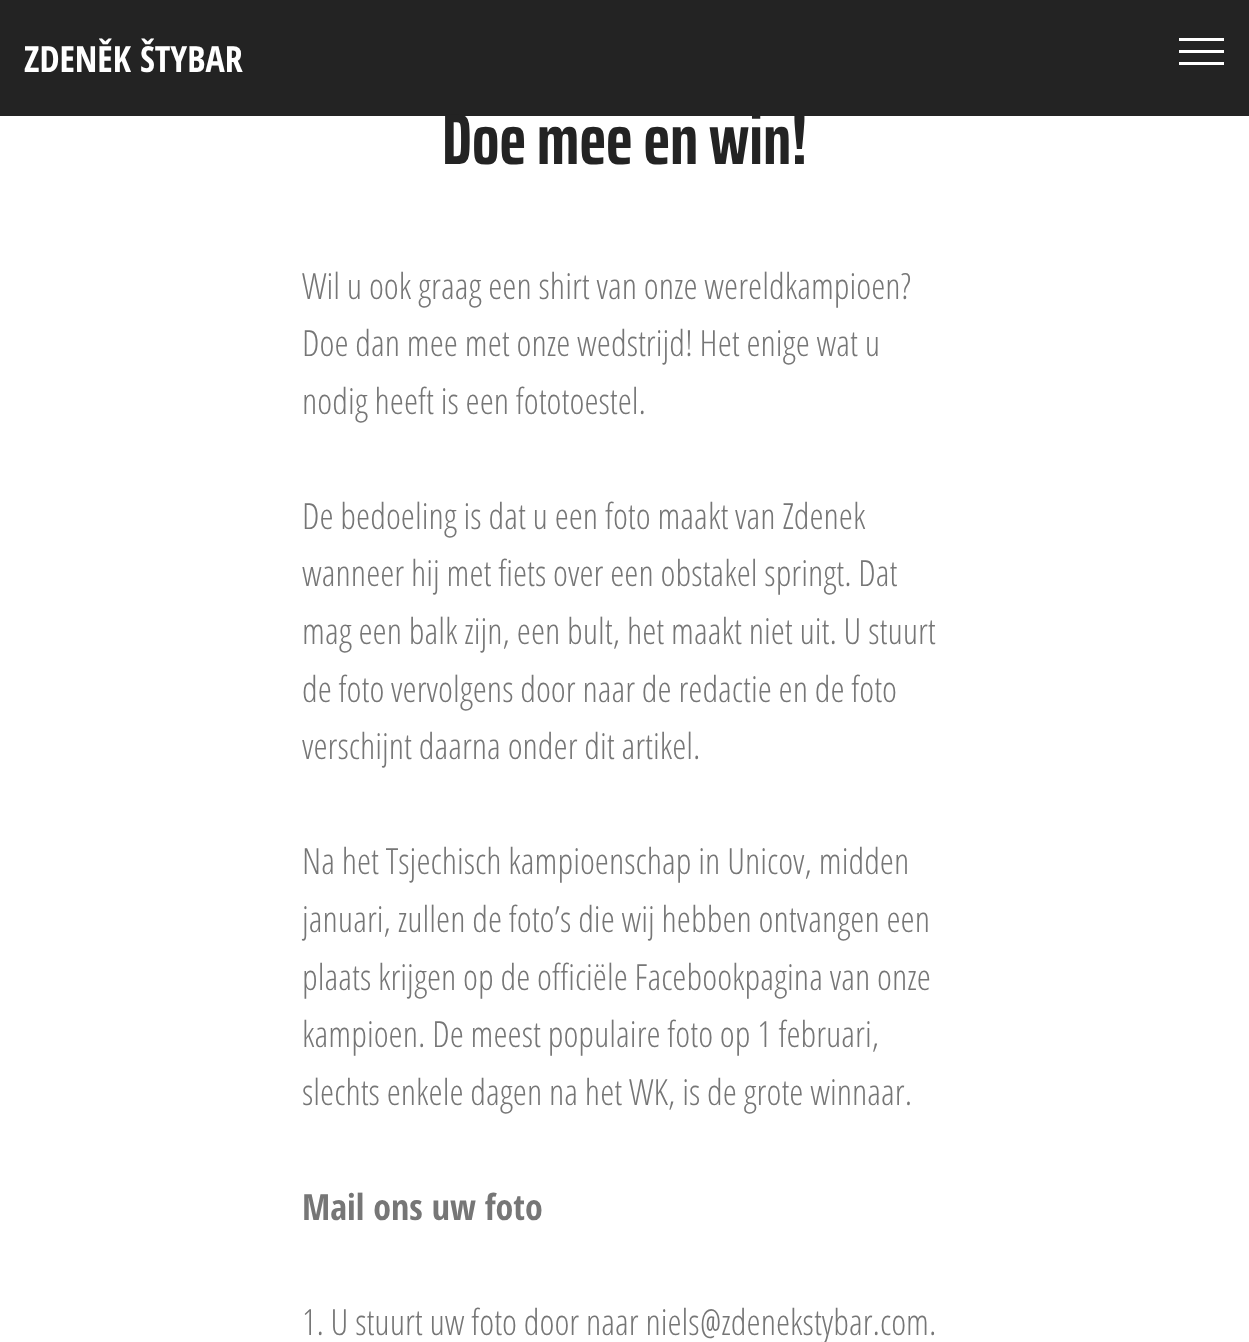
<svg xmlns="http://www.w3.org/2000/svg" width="1249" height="1342">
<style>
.a{font:bold 36px Open Sans Condensed;fill:#fff}
.b{font:bold 72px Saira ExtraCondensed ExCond;fill:#232323}
.c{font:300 36px Open Sans Condensed;fill:#767676}
.d{font:bold 36px Open Sans Condensed;fill:#767676}
</style>
<rect width="100%" height="100%" fill="#fff"/>
<path fill="#232323" d="M0 0h1249v116H0z"/>
<path fill="#fff" d="M1179 38h45v3H1179z"/>
<path fill="#fff" d="M1179 50h45v3H1179z"/>
<path fill="#fff" d="M1179 62h45v3H1179z"/>
<text class="a" x="24" y="72">ZDENĚK ŠTYBAR</text>
<text class="b" x="442" y="164">Doe mee en win!</text>
<text class="c" x="302" y="299">Wil u ook graag een shirt van onze wereldkampioen?</text>
<text class="c" x="302" y="356">Doe dan mee met onze wedstrijd! Het enige wat u</text>
<text class="c" x="302" y="414">nodig heeft is een fototoestel.</text>
<text class="c" x="302" y="529">De bedoeling is dat u een foto maakt van Zdenek</text>
<text class="c" x="302" y="586">wanneer hij met fiets over een obstakel springt. Dat</text>
<text class="c" x="302" y="644">mag een balk zijn, een bult, het maakt niet uit. U stuurt</text>
<text class="c" x="302" y="702">de foto vervolgens door naar de redactie en de foto</text>
<text class="c" x="302" y="759">verschijnt daarna onder dit artikel.</text>
<text class="c" x="302" y="874">Na het Tsjechisch kampioenschap in Unicov, midden</text>
<text class="c" x="302" y="932">januari, zullen de foto’s die wij hebben ontvangen een</text>
<text class="c" x="302" y="990">plaats krijgen op de officiële Facebookpagina van onze</text>
<text class="c" x="302" y="1047">kampioen. De meest populaire foto op 1 februari,</text>
<text class="c" x="302" y="1105">slechts enkele dagen na het WK, is de grote winnaar.</text>
<text class="d" x="302" y="1220">Mail ons uw foto</text>
<text class="c" x="302" y="1335">1. U stuurt uw foto door naar niels@zdenekstybar.com.</text>
</svg>
